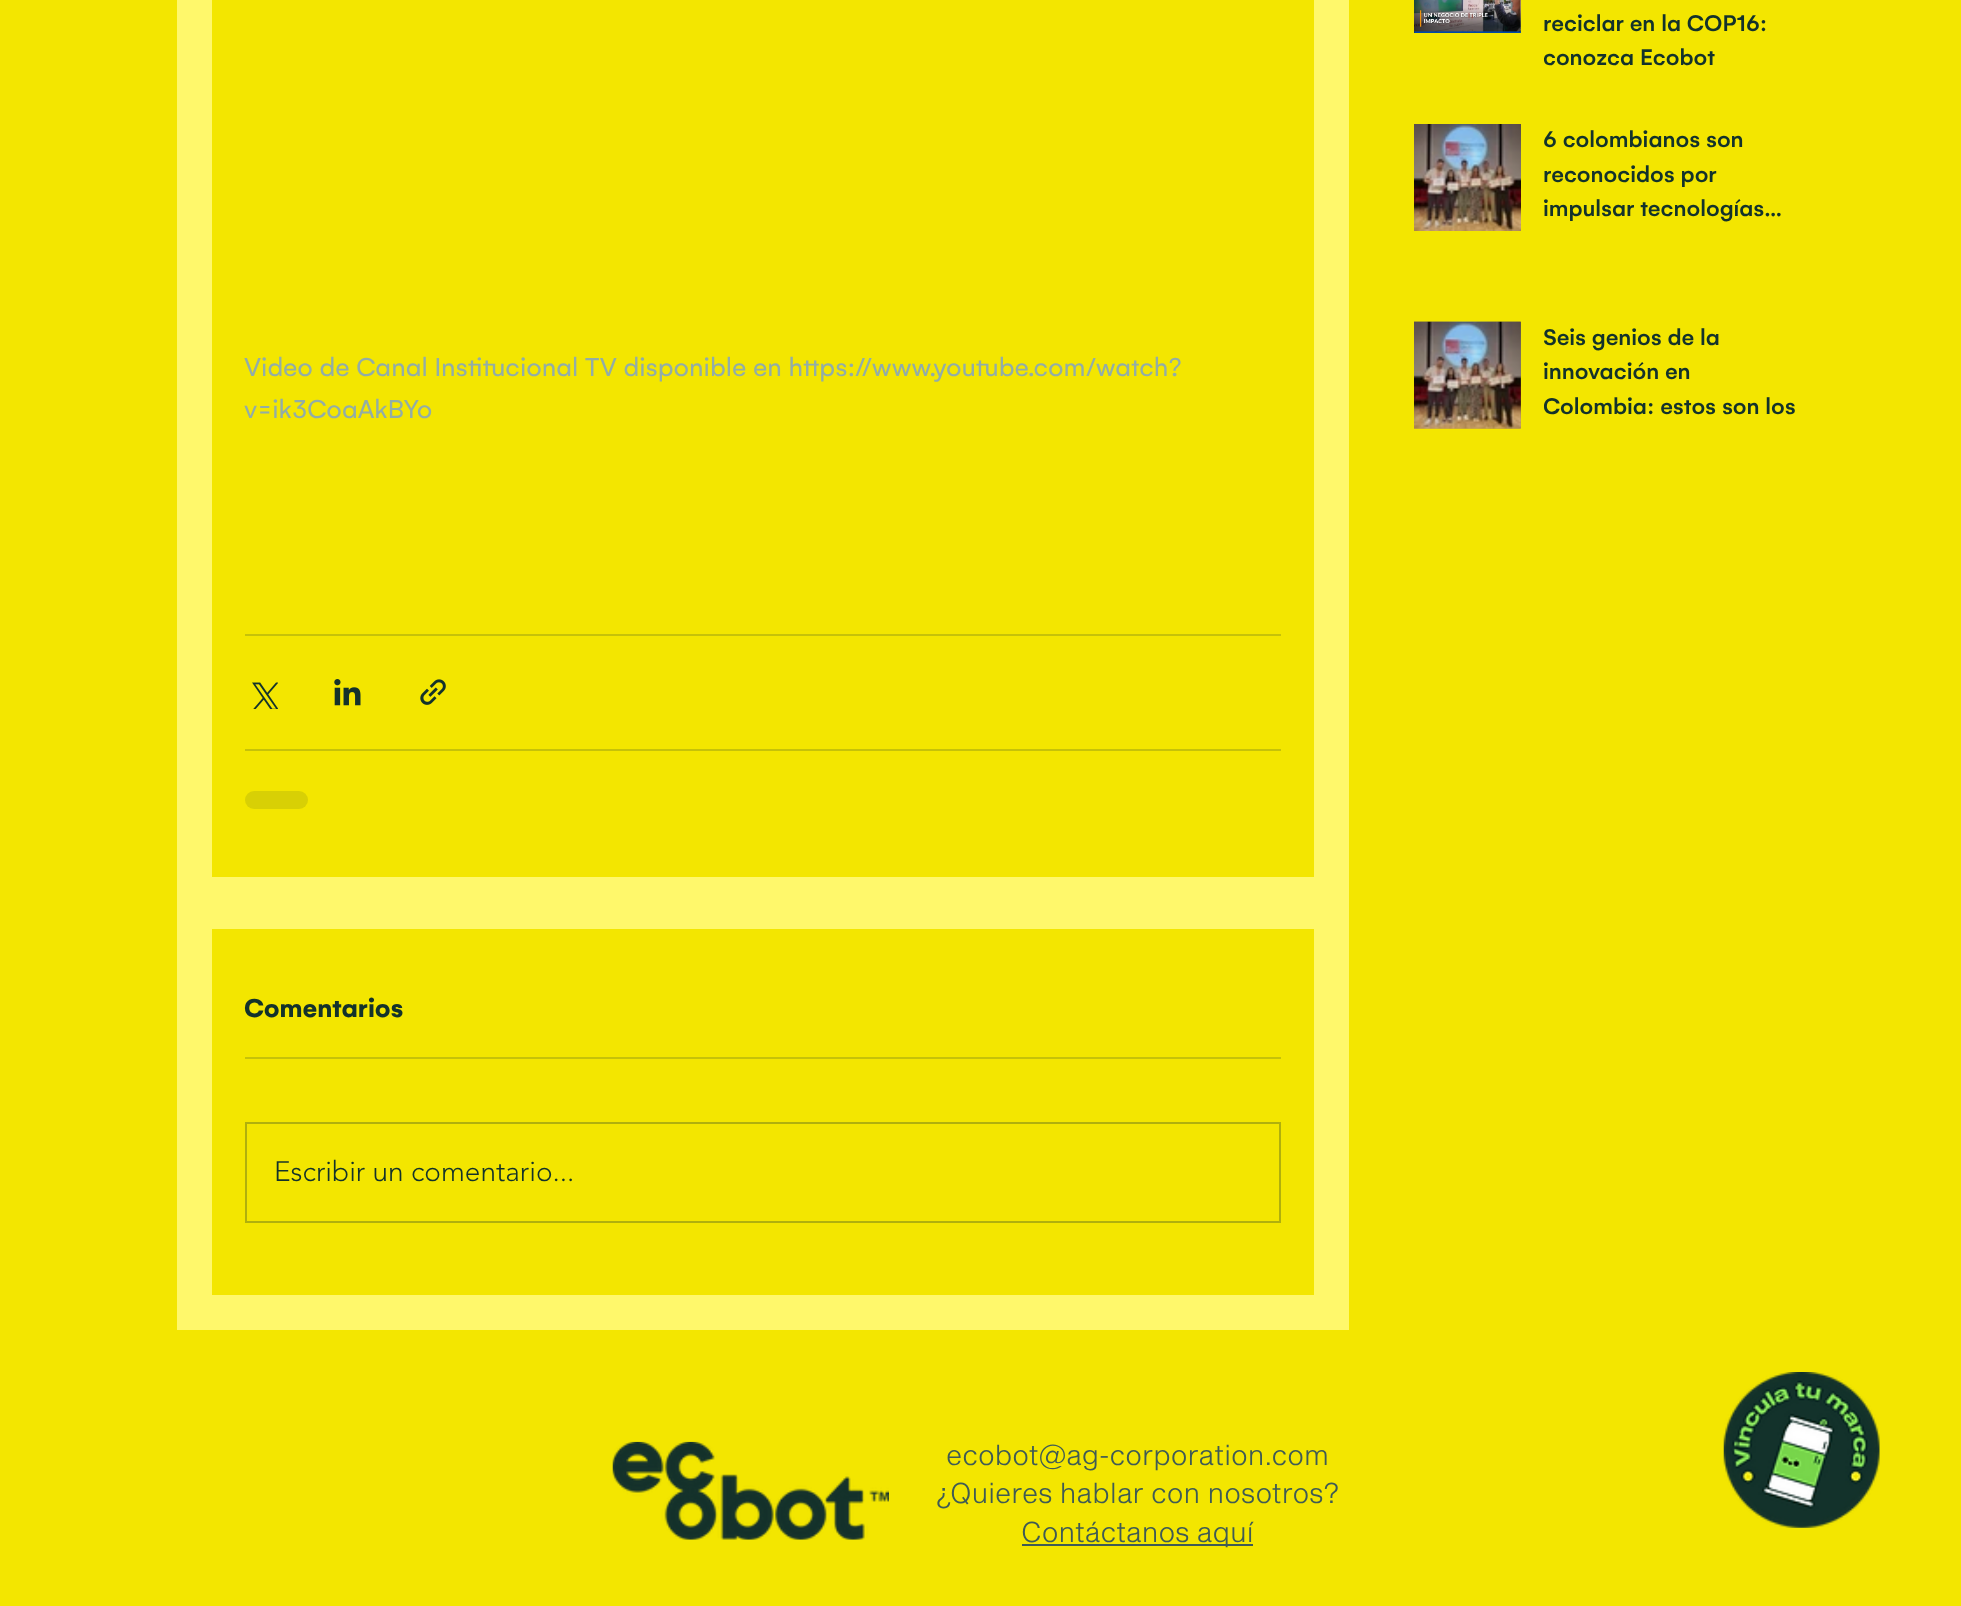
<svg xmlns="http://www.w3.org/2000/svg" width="1961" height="1606">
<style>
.a{font:500 24.5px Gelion;fill:#13322b}
.b{font:28px Gelion;fill:#92ada7}
.c{font:bold 28px Gelion;fill:#13322b}
.d{font:300 28px 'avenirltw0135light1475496';fill:#13322b}
.e{font:200 28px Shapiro;fill:#3f5b55}
</style>
<defs>
<clipPath id="clip1"><path d="M1544 0h257v75H1544z"/></clipPath>
<clipPath id="clip2"><path d="M1544 123h257v103H1544z"/></clipPath>
<clipPath id="clip3"><path d="M1544 320h257v104H1544z"/></clipPath>
</defs>
<rect width="100%" height="100%" fill="#f3e600"/>
<image href="1.png" x="1414" y="0" width="107" height="33"/>
<image href="2.png" x="1520" y="0" width="1" height="33"/>
<image href="3.png" x="1414" y="124" width="107" height="107"/>
<image href="4.png" x="1414" y="321" width="107" height="108"/>
<image href="5.png" x="1414" y="321" width="107" height="108"/>
<path fill="#fff86b" d="M177 0h1172v1330H177z"/>
<path fill="#f3e600" d="M212 0h1102v877H212z"/>
<path fill="#c6c209" d="M245 634h1036v2H245z"/>
<image href="6.png" x="252" y="682" width="26" height="27"/>
<image href="7.png" x="334" y="679" width="27" height="27"/>
<image href="8.png" x="420" y="679" width="26" height="26"/>
<path fill="#c6c209" d="M245 749h1036v2H245z"/>
<rect fill="#d8d005" x="245" y="791" width="63" height="18" rx="9"/>
<path fill="#f3e600" d="M212 929h1102v366H212z"/>
<path fill="#c6c209" d="M245 1057h1036v2H245z"/>
<path fill="none" stroke="#b0b00d" stroke-width="2" d="M246 1123h1034v99H246z"/>
<image href="9.png" x="612" y="1441" width="277" height="99"/>
<path fill="#3f5b55" d="M1022 1544h231v2H1022z"/>
<image href="10.png" x="1723" y="1372" width="157" height="156"/>
<text class="a" x="1543" y="31">reciclar en la COP16:</text>
<g clip-path="url(#clip1)">
<text class="a" x="1543" y="65">conozca Ecobot</text>
</g>
<g clip-path="url(#clip2)">
<text class="a" x="1543" y="147">6 colombianos son</text>
</g>
<text class="a" x="1543" y="182">reconocidos por</text>
<text class="a" x="1543" y="216">impulsar tecnologías…</text>
<g clip-path="url(#clip3)">
<text class="a" x="1543" y="345">Seis genios de la</text>
</g>
<text class="a" x="1543" y="379">innovación en</text>
<g clip-path="url(#clip3)">
<text class="a" x="1543" y="414">Colombia: estos son los</text>
</g>
<text class="b" x="244" y="376">Video de Canal Institucional TV disponible en https://www.youtube.com/watch?</text>
<text class="b" x="244" y="418">v=ik3CoaAkBYo</text>
<text class="c" x="244" y="1017">Comentarios</text>
<text class="d" x="274" y="1181">Escribir un comentario...</text>
<text class="e" x="946" y="1465">ecobot@ag-corporation.com</text>
<text class="e" x="936" y="1503">¿Quieres hablar con nosotros?</text>
<text class="e" x="1021" y="1542">Contáctanos aquí</text>
</svg>
